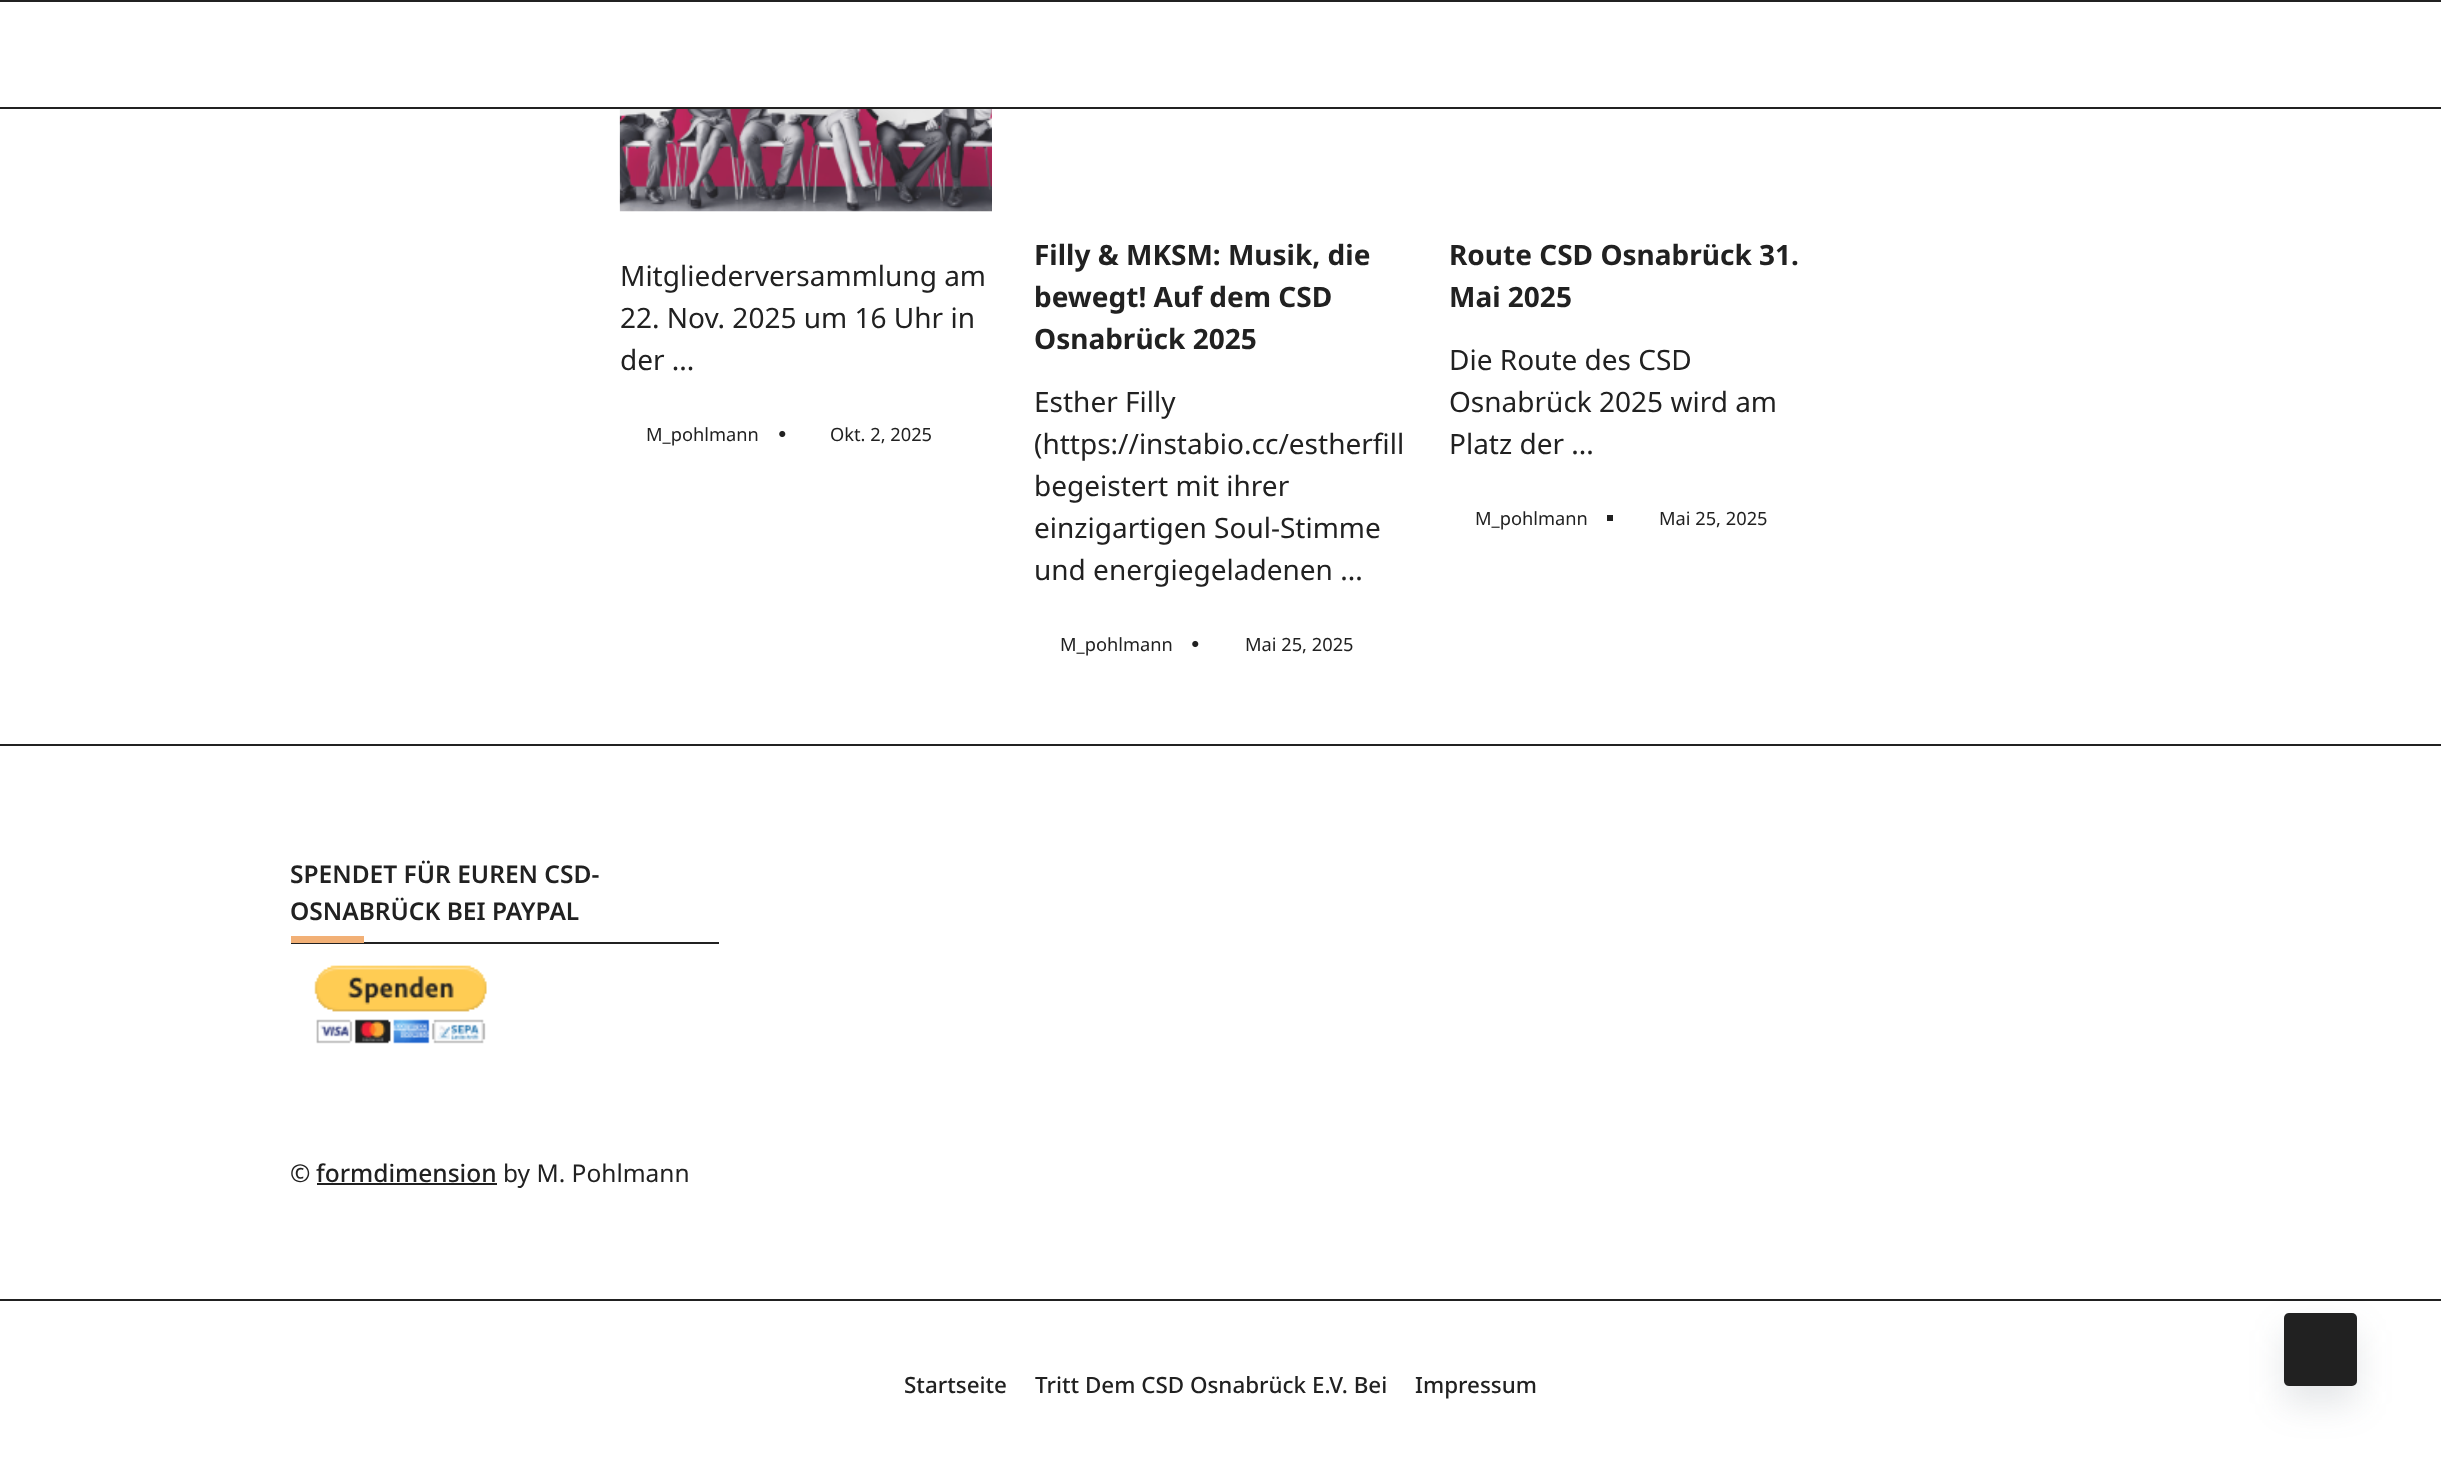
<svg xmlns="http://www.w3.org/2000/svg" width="2441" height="1469">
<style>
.a{font:28px Noto Sans;fill:#212121}
.b{font:18.25px Noto Sans;fill:#212121}
.c{font:bold 28px Noto Sans;fill:#212121}
.d{font:600 24.5px Noto Sans;fill:#212121}
.e{font:24.5px Noto Sans;fill:#212121}
.f{font:500 24.5px Noto Sans;fill:#212121}
.g{font:500 22.4px Noto Sans;fill:#212121}
</style>
<rect width="100%" height="100%" fill="#fff"/>
<path fill="#212121" d="M0 0h2441v2H0z"/>
<path fill="#212121" d="M0 107h2441v2H0z"/>
<image href="1.png" x="619" y="109" width="373" height="103"/>
<image href="2.png" x="779" y="430" width="7" height="8"/>
<image href="2.png" x="1192" y="640" width="7" height="8"/>
<path fill="#212121" d="M1607 515h6v6H1607z"/>
<path fill="#212121" d="M0 744h2441v2H0z"/>
<path fill="#212121" d="M291 942h428v2H291z"/>
<path fill="#f2b076" d="M291 936h73v7H291z"/>
<image href="3.png" x="314" y="965" width="173" height="79"/>
<path fill="#212121" d="M317 1183h180v2H317z"/>
<path fill="#212121" d="M0 1299h2441v2H0z"/>
<rect fill="#47576726" filter="blur(17.5px)" x="2284" y="1330" width="73" height="74" rx="5"/>
<rect fill="#212121" x="2284" y="1313" width="73" height="73" rx="5"/>
<text class="a" x="620" y="286">Mitgliederversammlung am</text>
<text class="a" x="620" y="328">22. Nov. 2025 um 16 Uhr in</text>
<text class="a" x="620" y="370">der ...</text>
<text class="b" x="646" y="441">M_pohlmann</text>
<text class="b" x="830" y="441">Okt. 2, 2025</text>
<text class="c" x="1034" y="265">Filly &amp; MKSM: Musik, die</text>
<text class="c" x="1034" y="307">bewegt! Auf dem CSD</text>
<text class="c" x="1034" y="349">Osnabrück 2025</text>
<text class="a" x="1034" y="412">Esther Filly</text>
<text class="a" x="1034" y="454">(https://instabio.cc/estherfill</text>
<text class="a" x="1034" y="496">begeistert mit ihrer</text>
<text class="a" x="1034" y="538">einzigartigen Soul-Stimme</text>
<text class="a" x="1034" y="580">und energiegeladenen ...</text>
<text class="b" x="1060" y="651">M_pohlmann</text>
<text class="b" x="1245" y="651">Mai 25, 2025</text>
<text class="c" x="1449" y="265">Route CSD Osnabrück 31.</text>
<text class="c" x="1449" y="307">Mai 2025</text>
<text class="a" x="1449" y="370">Die Route des CSD</text>
<text class="a" x="1449" y="412">Osnabrück 2025 wird am</text>
<text class="a" x="1449" y="454">Platz der ...</text>
<text class="b" x="1475" y="525">M_pohlmann</text>
<text class="b" x="1659" y="525">Mai 25, 2025</text>
<text class="d" x="290" y="883">SPENDET FÜR EUREN CSD-</text>
<text class="d" x="290" y="920">OSNABRÜCK BEI PAYPAL</text>
<text class="e" x="290" y="1182">©</text>
<text class="f" x="316" y="1182">formdimension</text>
<text class="e" x="503" y="1182">by M. Pohlmann</text>
<text class="g" x="904" y="1393">Startseite</text>
<text class="g" x="1035" y="1393">Tritt Dem CSD Osnabrück E.V. Bei</text>
<text class="g" x="1415" y="1393">Impressum</text>
</svg>
